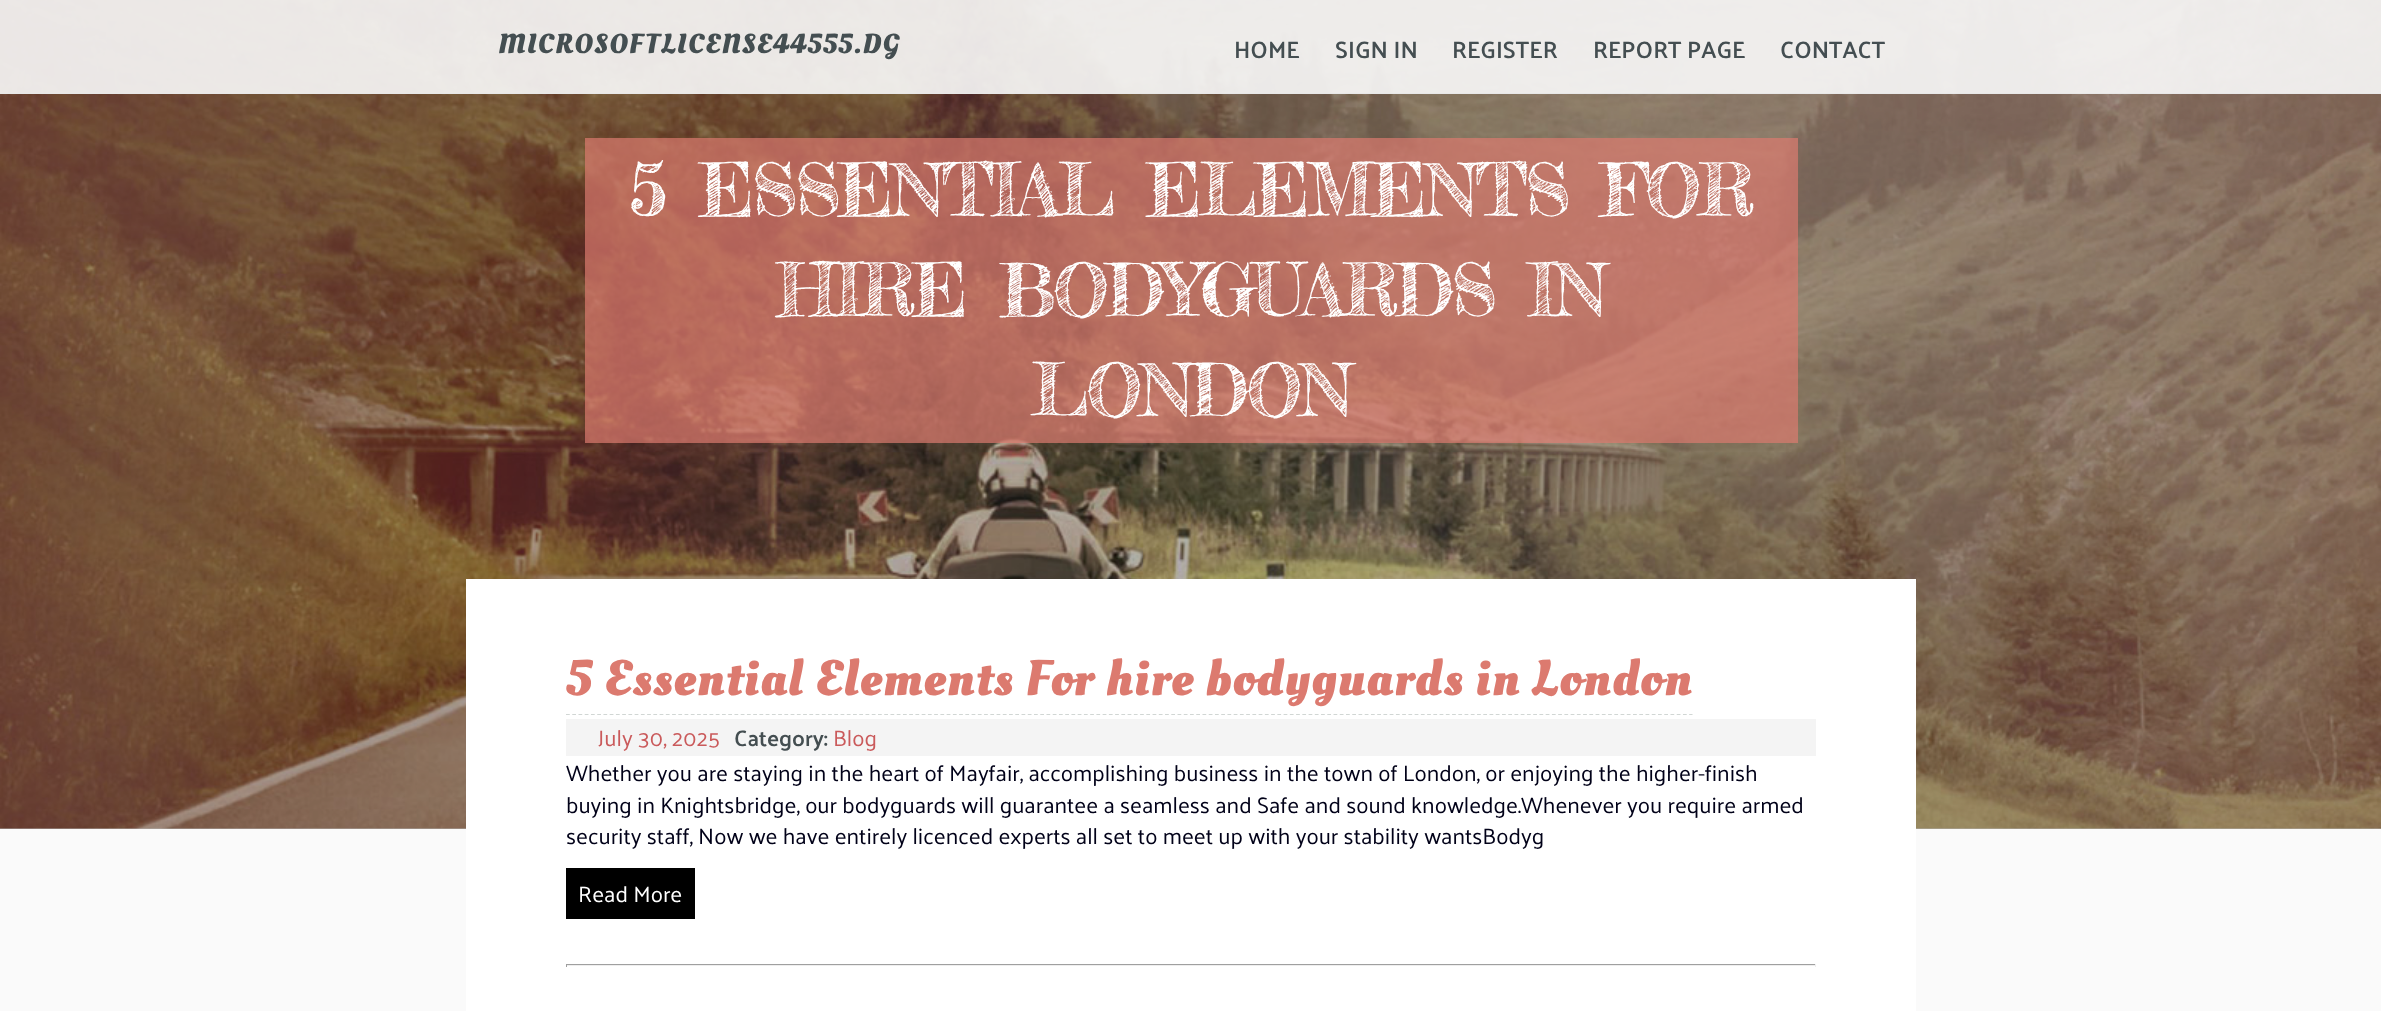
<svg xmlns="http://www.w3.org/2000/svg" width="2381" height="1011">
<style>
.a{font:bold 27.5px Oleo Script;letter-spacing:1.25px;fill:#444e51}
.b{font:600 23.75px Palanquin;fill:#444e51}
.c{font:72.5px Fredericka the Great;letter-spacing:-2.5px;fill:#fff}
.d{font:bold 50px Oleo Script;letter-spacing:1.25px;fill:#dc7a6f}
.e{font:22.5px Palanquin;fill:#ca5a5b}
.f{font:600 22.5px Palanquin;fill:#444e51}
.g{font:22.5px Palanquin;fill:#010118}
.h{font:22.5px Palanquin;fill:#fff}
</style>
<rect width="100%" height="100%" fill="#fafafa"/>
<path fill="#b3b3b3" d="M0 828h2381v1H0z"/>
<image href="1.png" x="0" y="0" width="2381" height="829"/>
<path fill="#fafafae6" d="M0 0h2381v93H0z"/>
<path fill="#e8e8e8" d="M0 93h2381v1H0z"/>
<path fill="#dc7a6fb3" d="M585 138h1213v305H585z"/>
<path fill="#fff" d="M466 579h1450v432H466z"/>
<path fill="none" stroke="#d1d6d4" stroke-width="1.2" stroke-dasharray="3.75 2.49" d="M566 714.5h1126.5"/>
<path fill="#f4f4f4" d="M566 719h1250v37H566z"/>
<path fill="#000" d="M566 868h129v51H566z"/>
<path fill="#9f9f9f" d="M566 964h1250v1H566z"/>
<path fill="#eee" d="M1815 964h1v3H1815z"/>
<path fill="#eee" d="M566 965h1250v1H566z"/>
<path fill="#9f9f9f" d="M566 964h1v3H566z"/>
<text class="a" x="498" y="53">MICROSOFTLICENSE44555.DG</text>
<text class="b" x="1234" y="58">HOME</text>
<text class="b" x="1335" y="58">SIGN IN</text>
<text class="b" x="1452" y="58">REGISTER</text>
<text class="b" x="1593" y="58">REPORT PAGE</text>
<text class="b" x="1780" y="58">CONTACT</text>
<text class="c" x="629" y="216" word-spacing="10">5 ESSENTIAL ELEMENTS FOR</text>
<text class="c" x="777" y="316" word-spacing="10">HIRE BODYGUARDS IN</text>
<text class="c" x="1031" y="416">LONDON</text>
<text class="d" x="566" y="695">5 Essential Elements For hire bodyguards in London</text>
<text class="e" x="598" y="746">July 30, 2025</text>
<text class="f" x="734" y="746">Category:</text>
<text class="e" x="833" y="746">Blog</text>
<text class="g" x="566" y="781">Whether you are staying in the heart of Mayfair, accomplishing business in the town of London, or enjoying the higher-finish</text>
<text class="g" x="566" y="813">buying in Knightsbridge, our bodyguards will guarantee a seamless and Safe and sound knowledge.Whenever you require armed</text>
<text class="g" x="566" y="844">security staff, Now we have entirely licenced experts all set to meet up with your stability wantsBodyg</text>
<text class="h" x="578" y="902">Read More</text>
</svg>
